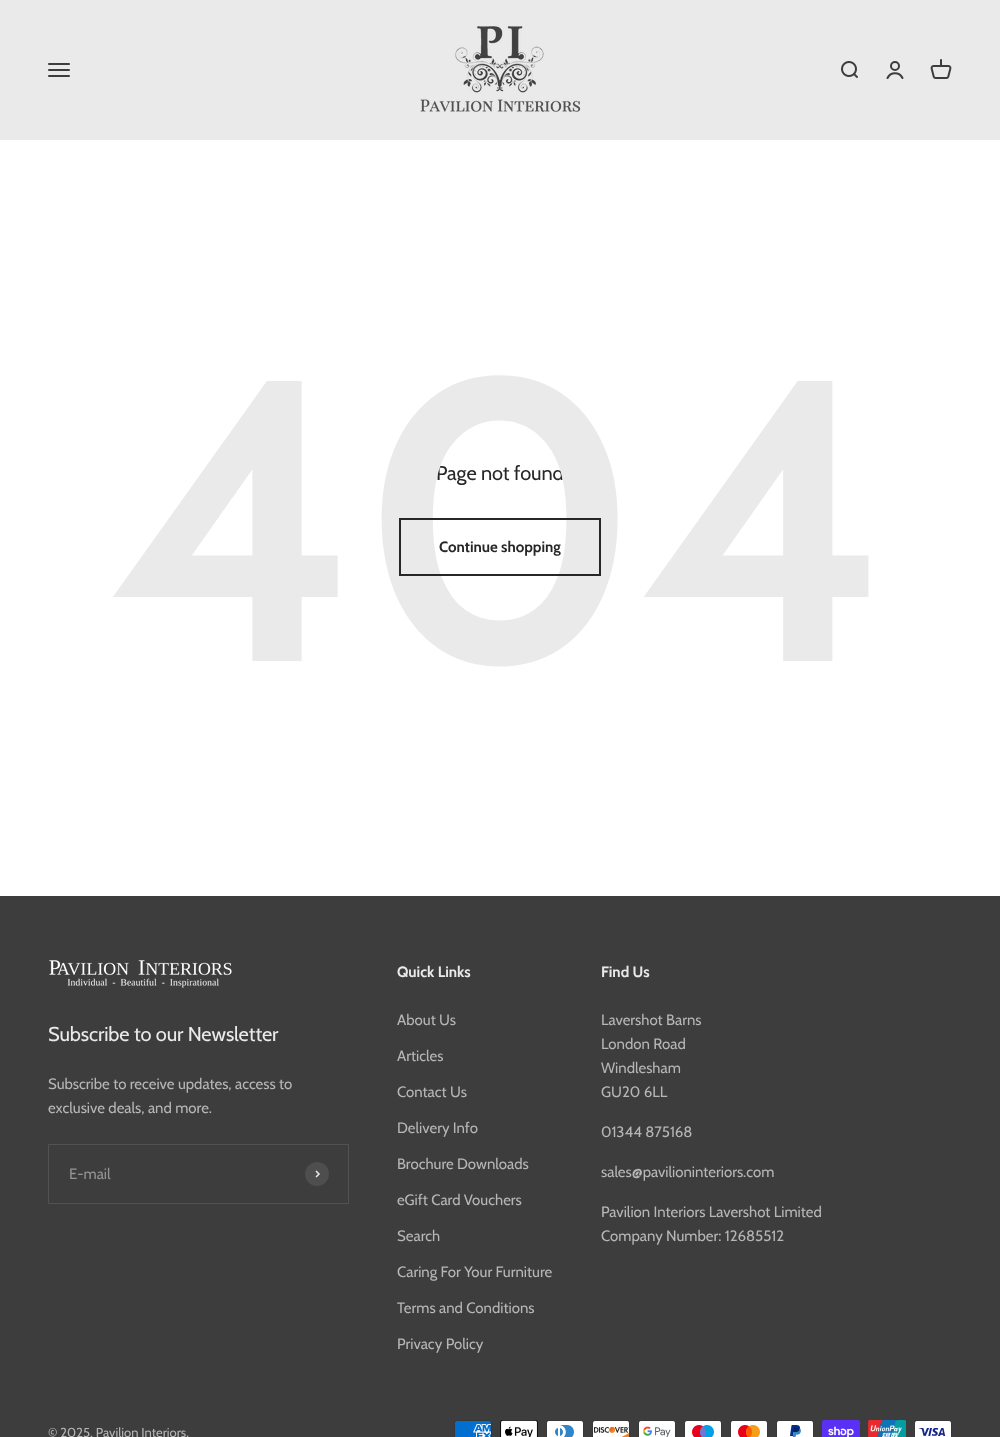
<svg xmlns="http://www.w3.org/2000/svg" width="1000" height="1437">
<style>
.a{font:20px Cabin;letter-spacing:-0.1px;fill:#272727}
.b{font:bold 400px Cabin;fill:#eaeaea}
.c{font:bold 15px Cabin;fill:#272727}
.d{font:20px Cabin;letter-spacing:-0.1px;fill:#eaeaea}
.e{font:15px Cabin;fill:#b6b6b6}
.f{font:15px Cabin;fill:#949494}
.g{font:bold 15px Cabin;fill:#eaeaea}
.h{font:13px Cabin;fill:#b6b6b6}
</style>
<rect width="100%" height="100%" fill="#fff"/>
<path fill="#eaeaea" d="M0 0h1000v140H0z"/>
<image href="1.png" x="48" y="63" width="22" height="14"/>
<image href="2.png" x="420" y="26" width="161" height="86"/>
<image href="3.png" x="841" y="61" width="17" height="17"/>
<circle fill="none" stroke="#3e3d3d" stroke-width="2" cx="895" cy="66" r="4"/>
<path fill="none" stroke="#3e3d3d" stroke-width="2" stroke-linecap="round" d="M887.5 78c3-6.5 12-6.5 15 0"/>
<image href="4.png" x="930" y="59" width="22" height="20"/>
<path fill="#3e3d3d" d="M0 896h1000v541H0z"/>
<image href="5.png" x="49" y="960" width="183" height="28"/>
<path fill="none" stroke="#535252" d="M48.5 1144.5h300v59H48.5z"/>
<circle fill="#4f4e4e" cx="317" cy="1174" r="12"/>
<path fill="none" stroke="#eaeaea" stroke-width="1.5" d="M316 1177l3-3l-3-3"/>
<image href="6.png" x="454" y="1420" width="38" height="17"/>
<image href="7.png" x="500" y="1420" width="38" height="17"/>
<image href="8.png" x="546" y="1420" width="38" height="17"/>
<image href="9.png" x="592" y="1420" width="38" height="17"/>
<image href="10.png" x="638" y="1420" width="38" height="17"/>
<image href="11.png" x="684" y="1420" width="38" height="17"/>
<image href="12.png" x="730" y="1420" width="38" height="17"/>
<image href="13.png" x="776" y="1420" width="38" height="17"/>
<image href="14.png" x="822" y="1420" width="38" height="17"/>
<image href="15.png" x="868" y="1420" width="38" height="17"/>
<image href="16.png" x="914" y="1420" width="38" height="17"/>
<text class="a" x="436" y="480">Page not found</text>
<text class="b" x="110" y="661">404</text>
<path fill="none" stroke="#272727" stroke-width="2" d="M400 519h200v56H400z"/>
<text class="c" x="439" y="552">Continue shopping</text>
<text class="d" x="48" y="1041">Subscribe to our Newsletter</text>
<text class="e" x="48" y="1089">Subscribe to receive updates, access to</text>
<text class="e" x="48" y="1113">exclusive deals, and more.</text>
<text class="f" x="69" y="1179">E-mail</text>
<text class="g" x="397" y="977">Quick Links</text>
<text class="e" x="397" y="1025">About Us</text>
<text class="e" x="397" y="1061">Articles</text>
<text class="e" x="397" y="1097">Contact Us</text>
<text class="e" x="397" y="1133">Delivery Info</text>
<text class="e" x="397" y="1169">Brochure Downloads</text>
<text class="e" x="397" y="1205">eGift Card Vouchers</text>
<text class="e" x="397" y="1241">Search</text>
<text class="e" x="397" y="1277">Caring For Your Furniture</text>
<text class="e" x="397" y="1313">Terms and Conditions</text>
<text class="e" x="397" y="1349">Privacy Policy</text>
<text class="g" x="601" y="977">Find Us</text>
<text class="e" x="601" y="1025">Lavershot Barns</text>
<text class="e" x="601" y="1049">London Road</text>
<text class="e" x="601" y="1073">Windlesham</text>
<text class="e" x="601" y="1097">GU20 6LL</text>
<text class="e" x="601" y="1137">01344 875168</text>
<text class="e" x="601" y="1177">sales@pavilioninteriors.com</text>
<text class="e" x="601" y="1217">Pavilion Interiors Lavershot Limited</text>
<text class="e" x="601" y="1241">Company Number: 12685512</text>
<text class="h" x="48" y="1437">© 2025, Pavilion Interiors.</text>
</svg>
